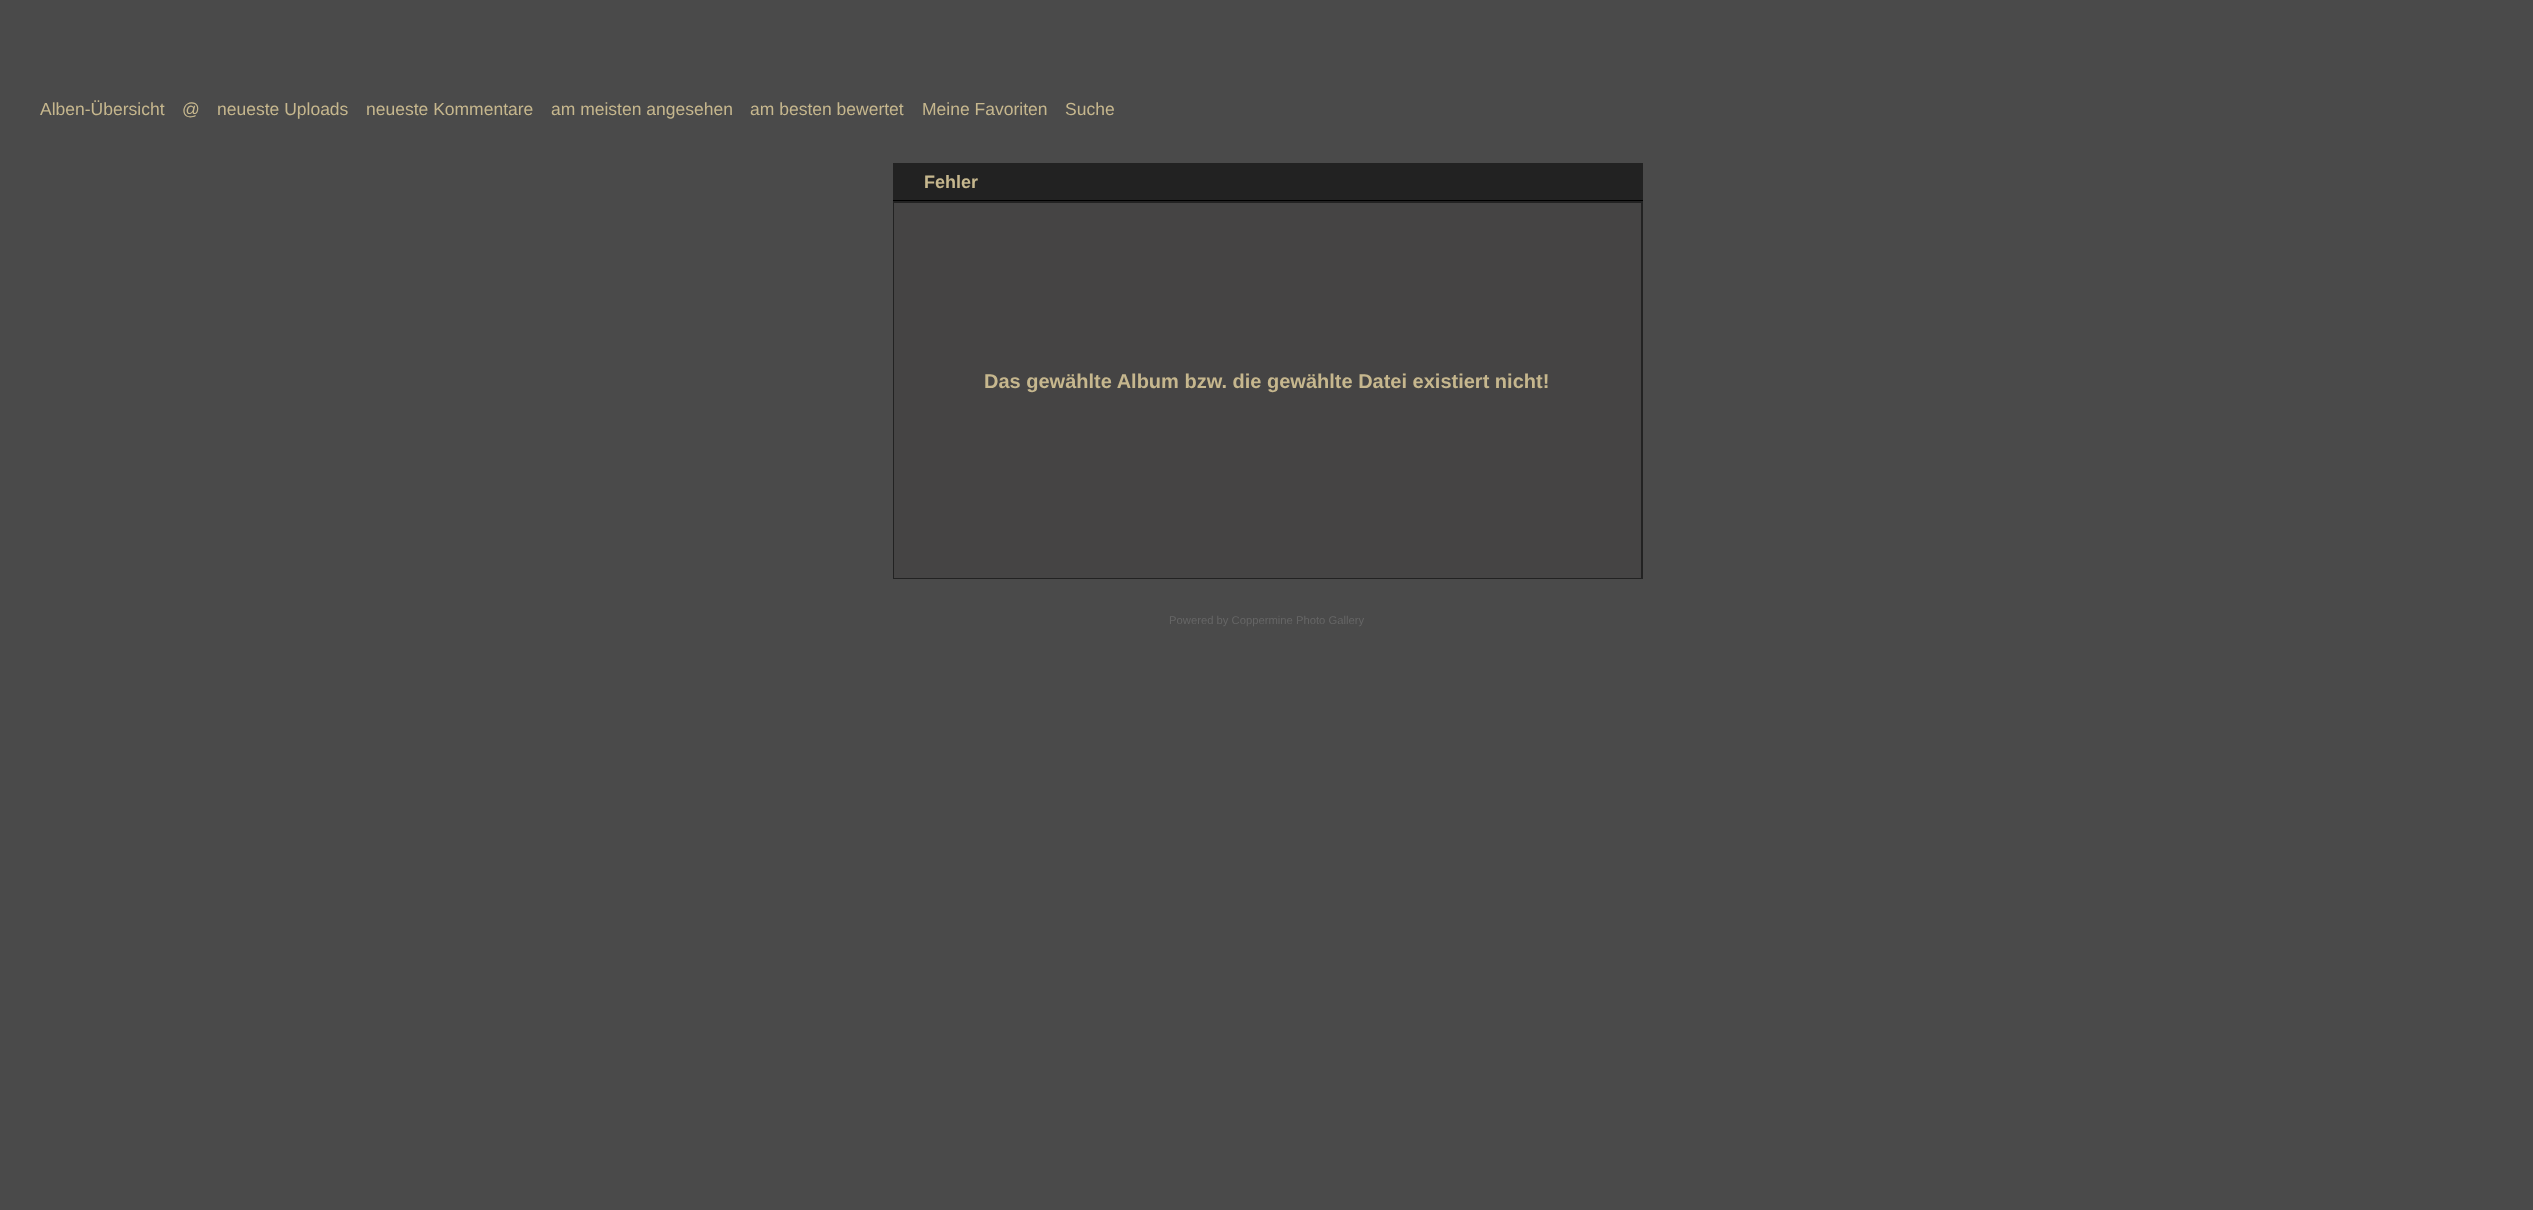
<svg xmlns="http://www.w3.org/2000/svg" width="2533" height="1210">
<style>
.a{font:17.5px Liberation Sans;fill:#c6b78e}
.b{font:bold 18px Liberation Sans;fill:#c6b78e}
.c{font:bold 20px Liberation Sans;fill:#c6b78e}
.d{font:11.25px Liberation Sans;fill:#666}
</style>
<rect width="100%" height="100%" fill="#4a4a4a"/>
<path fill="#222" d="M893 163h750v37H893z"/>
<path fill="#000" d="M893 200h750v1H893z"/>
<path fill="#222" d="M893 201h750v378H893z"/>
<path fill="#454444" d="M894 203h747v375H894z"/>
<text class="a" x="40" y="115">Alben-Übersicht</text>
<text class="a" x="182" y="115">@</text>
<text class="a" x="217" y="115">neueste Uploads</text>
<text class="a" x="366" y="115">neueste Kommentare</text>
<text class="a" x="551" y="115">am meisten angesehen</text>
<text class="a" x="750" y="115">am besten bewertet</text>
<text class="a" x="922" y="115">Meine Favoriten</text>
<text class="a" x="1065" y="115">Suche</text>
<text class="b" x="924" y="188">Fehler</text>
<text class="c" x="984" y="388">Das gewählte Album bzw. die gewählte Datei existiert nicht!</text>
<text class="d" x="1169" y="624">Powered by Coppermine Photo Gallery</text>
</svg>
